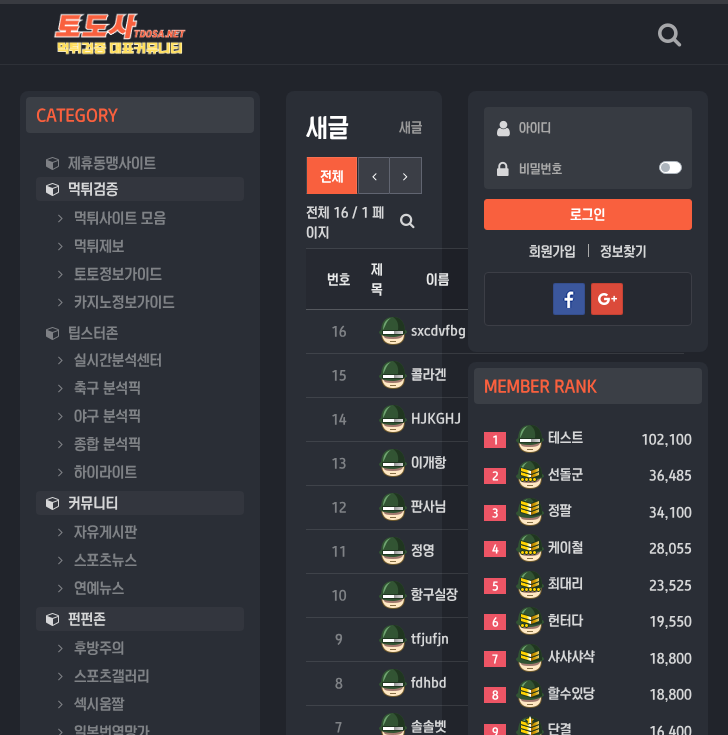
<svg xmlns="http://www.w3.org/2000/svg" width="728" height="735">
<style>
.a{font:bold 16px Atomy;fill:#f9603e}
.b{font:bold 14px Atomy;fill:#7f8286}
.c{font:bold 14px Atomy;fill:#d6d7d8}
.d{font:bold 24px Atomy;fill:#fff}
.e{font:bold 13px Atomy;fill:#999}
.f{font:bold 13px Atomy;fill:#fff}
.g{font:bold 13px Atomy;fill:#d6d7d8}
.h{font:bold 13px Atomy;fill:#e9eaea}
.i{font:bold 13px Atomy;fill:#7f8286}
.j{font:bold 12px Atomy;fill:#a9a9a9}
.k{font:bold 11px Atomy;letter-spacing:-1px;fill:#fff}
</style>
<defs>
<clipPath id="clip1"><path d="M306 157h52v37H306z"/></clipPath>
</defs>
<rect width="100%" height="100%" fill="#21242b"/>
<path fill="#373a40" d="M442 353h242v1H442z"/>
<path fill="#373a40" d="M442 397h26v1H442z"/>
<path fill="#373a40" d="M442 441h26v1H442z"/>
<path fill="#373a40" d="M442 485h26v1H442z"/>
<path fill="#373a40" d="M442 529h26v1H442z"/>
<path fill="#373a40" d="M442 573h26v1H442z"/>
<path fill="#373a40" d="M442 617h26v1H442z"/>
<path fill="#373a40" d="M442 661h26v1H442z"/>
<path fill="#373a40" d="M442 705h26v1H442z"/>
<path fill="#4d5055" d="M442 309h26v1H442z"/>
<path fill="#373a40" d="M442 248h26v1H442z"/>
<path fill="#1e2027" d="M442 249h26v60H442z"/>
<path fill="#393b41" d="M0 0h728v4H0z"/>
<path fill="#2e3138" d="M0 64h728v1H0z"/>
<image href="1.png" x="53" y="13" width="133" height="42"/>
<image href="2.png" x="658" y="23" width="24" height="24"/>
<rect fill="#2a2e36" x="20" y="91" width="240" height="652" rx="8"/>
<rect fill="#3b3f46" x="26" y="97" width="228" height="36" rx="4"/>
<image href="3.png" x="46" y="157" width="13" height="13"/>
<rect fill="#33363e" x="36" y="177" width="208" height="24" rx="4"/>
<image href="4.png" x="46" y="183" width="13" height="13"/>
<image href="5.png" x="58" y="214" width="5" height="9"/>
<image href="5.png" x="58" y="242" width="5" height="9"/>
<image href="5.png" x="58" y="270" width="5" height="9"/>
<image href="5.png" x="58" y="298" width="5" height="9"/>
<image href="3.png" x="46" y="327" width="13" height="13"/>
<image href="5.png" x="58" y="356" width="5" height="9"/>
<image href="5.png" x="58" y="384" width="5" height="9"/>
<image href="5.png" x="58" y="412" width="5" height="9"/>
<image href="5.png" x="58" y="440" width="5" height="9"/>
<image href="5.png" x="58" y="468" width="5" height="9"/>
<rect fill="#33363e" x="36" y="491" width="208" height="24" rx="4"/>
<image href="4.png" x="46" y="497" width="13" height="13"/>
<image href="5.png" x="58" y="528" width="5" height="9"/>
<image href="5.png" x="58" y="556" width="5" height="9"/>
<image href="5.png" x="58" y="584" width="5" height="9"/>
<rect fill="#33363e" x="36" y="607" width="208" height="24" rx="4"/>
<image href="4.png" x="46" y="613" width="13" height="13"/>
<image href="5.png" x="58" y="644" width="5" height="9"/>
<image href="5.png" x="58" y="672" width="5" height="9"/>
<image href="5.png" x="58" y="700" width="5" height="9"/>
<image href="6.png" x="58" y="728" width="5" height="7"/>
<rect fill="#2a2e36" x="286" y="91" width="156" height="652" rx="8"/>
<path fill="#262931" d="M357 157h1v37H357z"/>
<path fill="#3f434a" d="M306 157h1v37H306z"/>
<path fill="#3f434a" d="M306 353h136v1H306z"/>
<path fill="#3f434a" d="M306 397h136v1H306z"/>
<path fill="#3f434a" d="M306 441h136v1H306z"/>
<path fill="#3f434a" d="M306 485h136v1H306z"/>
<path fill="#3f434a" d="M306 529h136v1H306z"/>
<path fill="#3f434a" d="M306 573h136v1H306z"/>
<path fill="#3f434a" d="M306 617h136v1H306z"/>
<path fill="#3f434a" d="M306 661h136v1H306z"/>
<path fill="#3f434a" d="M306 705h136v1H306z"/>
<path fill="#55585e" d="M306 309h136v1H306z"/>
<path fill="#3f434a" d="M306 248h136v1H306z"/>
<path fill="#262931" d="M306 249h136v60H306z"/>
<path fill="#f9603e" d="M307 157h50v37H307z"/>
<path fill="#fa7051" d="M307 157h50l-1 1h-49z"/>
<path fill="#ffffff1a" d="M357 157v37l-1-1v-35z"/>
<path fill="#f9603e" d="M357 194h-50v-1h49z"/>
<g clip-path="url(#clip1)">
<path fill="#3c3f45" d="M357 157h86l-1 1h-85z"/>
<path fill="#4d5055" d="M443 194h-86v-1h85z"/>
</g>
<path fill="#3b3e46" stroke="#616571" d="M358.5 157.5h31v36H358.5z"/>
<image href="7.png" x="372" y="173" width="5" height="8"/>
<path fill="#3b3e46" d="M390 158h31v35H390z"/>
<path fill="#616571" d="M390 157h32v1H390z"/>
<path fill="#616571" d="M421 157h1v37H421z"/>
<path fill="#616571" d="M390 193h32v1H390z"/>
<image href="8.png" x="403" y="173" width="5" height="8"/>
<path fill="#52565c" d="M306 193h1v1H306z"/>
<image href="9.png" x="400" y="213" width="15" height="16"/>
<image href="10.png" x="379" y="317" width="28" height="28"/>
<image href="10.png" x="379" y="361" width="28" height="28"/>
<image href="10.png" x="379" y="405" width="28" height="28"/>
<image href="10.png" x="379" y="449" width="28" height="28"/>
<image href="10.png" x="379" y="493" width="28" height="28"/>
<image href="10.png" x="379" y="537" width="28" height="28"/>
<image href="10.png" x="379" y="581" width="28" height="28"/>
<image href="10.png" x="379" y="625" width="28" height="28"/>
<image href="10.png" x="379" y="669" width="28" height="28"/>
<image href="11.png" x="379" y="713" width="28" height="22"/>
<rect fill="#2a2e36" x="468" y="91" width="240" height="261" rx="8"/>
<rect fill="#373b42" x="484" y="107" width="208" height="82" rx="4"/>
<image href="12.png" x="497" y="120" width="13" height="17"/>
<image href="13.png" x="497" y="161" width="12" height="15"/>
<rect fill="#fff" stroke="#adb5bd" x="659.5" y="161.5" width="22" height="12" rx="6"/>
<circle fill="#adb5bd" cx="665.5" cy="167.5" r="4.5"/>
<rect fill="#f9603e" stroke="#f9603e" x="484.5" y="199.5" width="207" height="30" rx="2.5"/>
<path fill="#aaa" d="M588 244h1v13H588z"/>
<rect fill="#262931" stroke="#3c3e46" x="484.5" y="272.5" width="207" height="53" rx="3.5"/>
<rect fill="#3b579d" x="553" y="283" width="32" height="32" rx="2"/>
<image href="14.png" x="563" y="290" width="12" height="18"/>
<rect fill="none" stroke="#0000001a" x="553.5" y="283.5" width="31" height="31" rx="1.5"/>
<rect fill="#db4a3a" x="591" y="283" width="32" height="32" rx="2"/>
<image href="15.png" x="598" y="293" width="19" height="12"/>
<rect fill="none" stroke="#0000001a" x="591.5" y="283.5" width="31" height="31" rx="1.5"/>
<rect fill="#2a2e36" x="468" y="362" width="240" height="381" rx="8"/>
<rect fill="#3b3f46" x="474" y="368" width="228" height="36" rx="4"/>
<path fill="#ed5565" d="M484 432h22v16H484z"/>
<image href="10.png" x="516" y="425" width="28" height="28"/>
<path fill="#ed5565" d="M484 468h22v16H484z"/>
<image href="16.png" x="516" y="461" width="28" height="28"/>
<path fill="#ed5565" d="M484 505h22v16H484z"/>
<image href="17.png" x="516" y="498" width="28" height="28"/>
<path fill="#ed5565" d="M484 541h22v16H484z"/>
<image href="16.png" x="516" y="534" width="28" height="28"/>
<path fill="#ed5565" d="M484 578h22v16H484z"/>
<image href="18.png" x="516" y="571" width="28" height="28"/>
<path fill="#ed5565" d="M484 614h22v16H484z"/>
<image href="19.png" x="516" y="607" width="28" height="28"/>
<path fill="#ed5565" d="M484 651h22v16H484z"/>
<image href="20.png" x="516" y="644" width="28" height="28"/>
<path fill="#ed5565" d="M484 687h22v16H484z"/>
<image href="20.png" x="516" y="680" width="28" height="28"/>
<path fill="#ed5565" d="M484 724h22v11H484z"/>
<image href="21.png" x="516" y="716" width="28" height="19"/>
<text class="a" x="36" y="121">CATEGORY</text>
<text class="b" x="68" y="168">제휴동맹사이트</text>
<text class="c" x="68" y="194">먹튀검증</text>
<text class="b" x="74" y="223">먹튀사이트 모음</text>
<text class="b" x="74" y="251">먹튀제보</text>
<text class="b" x="74" y="279">토토정보가이드</text>
<text class="b" x="74" y="307">카지노정보가이드</text>
<text class="b" x="68" y="338">팁스터존</text>
<text class="b" x="74" y="365">실시간분석센터</text>
<text class="b" x="74" y="393">축구 분석픽</text>
<text class="b" x="74" y="421">야구 분석픽</text>
<text class="b" x="74" y="449">종합 분석픽</text>
<text class="b" x="74" y="477">하이라이트</text>
<text class="c" x="68" y="508">커뮤니티</text>
<text class="b" x="74" y="537">자유게시판</text>
<text class="b" x="74" y="565">스포츠뉴스</text>
<text class="b" x="74" y="593">연예뉴스</text>
<text class="c" x="68" y="624">펀펀존</text>
<text class="b" x="74" y="653">후방주의</text>
<text class="b" x="74" y="681">스포츠갤러리</text>
<text class="b" x="74" y="709">섹시움짤</text>
<text class="b" x="74" y="737">일본번역망가</text>
<text class="d" x="306" y="136">새글</text>
<text class="e" x="399" y="132">새글</text>
<text class="f" x="320" y="181">전체</text>
<text class="g" x="306" y="217">전체 16 / 1 페</text>
<text class="g" x="306" y="237">이지</text>
<text class="h" x="327" y="284">번호</text>
<text class="h" x="371" y="274">제</text>
<text class="h" x="371" y="294">목</text>
<text class="h" x="426" y="284">이름</text>
<text class="i" x="331" y="336">16</text>
<text class="g" x="411" y="335">sxcdvfbg</text>
<text class="i" x="331" y="380">15</text>
<text class="g" x="411" y="379">콜라겐</text>
<text class="i" x="331" y="424">14</text>
<text class="g" x="411" y="423">HJKGHJ</text>
<text class="i" x="331" y="468">13</text>
<text class="g" x="411" y="467">이개항</text>
<text class="i" x="331" y="512">12</text>
<text class="g" x="411" y="511">판사님</text>
<text class="i" x="331" y="556">11</text>
<text class="g" x="411" y="555">정영</text>
<text class="i" x="331" y="600">10</text>
<text class="g" x="411" y="599">항구실장</text>
<text class="i" x="335" y="644">9</text>
<text class="g" x="411" y="643">tfjufjn</text>
<text class="i" x="335" y="688">8</text>
<text class="g" x="411" y="687">fdhbd</text>
<text class="i" x="335" y="732">7</text>
<text class="g" x="411" y="731">솔솔벳</text>
<text class="j" x="519" y="132">아이디</text>
<text class="j" x="519" y="173">비밀번호</text>
<text class="f" x="570" y="219">로그인</text>
<text class="g" x="529" y="256">회원가입</text>
<text class="g" x="600" y="256">정보찾기</text>
<text class="a" x="484" y="392">MEMBER RANK</text>
<text class="k" x="492" y="444">1</text>
<text class="g" x="548" y="442">테스트</text>
<text class="g" x="641" y="444">102,100</text>
<text class="k" x="492" y="480">2</text>
<text class="g" x="548" y="479">선돌군</text>
<text class="g" x="649" y="480">36,485</text>
<text class="k" x="492" y="517">3</text>
<text class="g" x="548" y="515">정팔</text>
<text class="g" x="649" y="517">34,100</text>
<text class="k" x="492" y="553">4</text>
<text class="g" x="548" y="552">케이철</text>
<text class="g" x="649" y="553">28,055</text>
<text class="k" x="492" y="590">5</text>
<text class="g" x="548" y="588">최대리</text>
<text class="g" x="649" y="590">23,525</text>
<text class="k" x="492" y="626">6</text>
<text class="g" x="548" y="625">헌터다</text>
<text class="g" x="649" y="626">19,550</text>
<text class="k" x="492" y="663">7</text>
<text class="g" x="548" y="661">샤샤샤샥</text>
<text class="g" x="649" y="663">18,800</text>
<text class="k" x="492" y="699">8</text>
<text class="g" x="548" y="698">할수있당</text>
<text class="g" x="649" y="699">18,800</text>
<text class="k" x="492" y="736">9</text>
<text class="g" x="548" y="734">단결</text>
<text class="g" x="649" y="736">16,400</text>
</svg>
